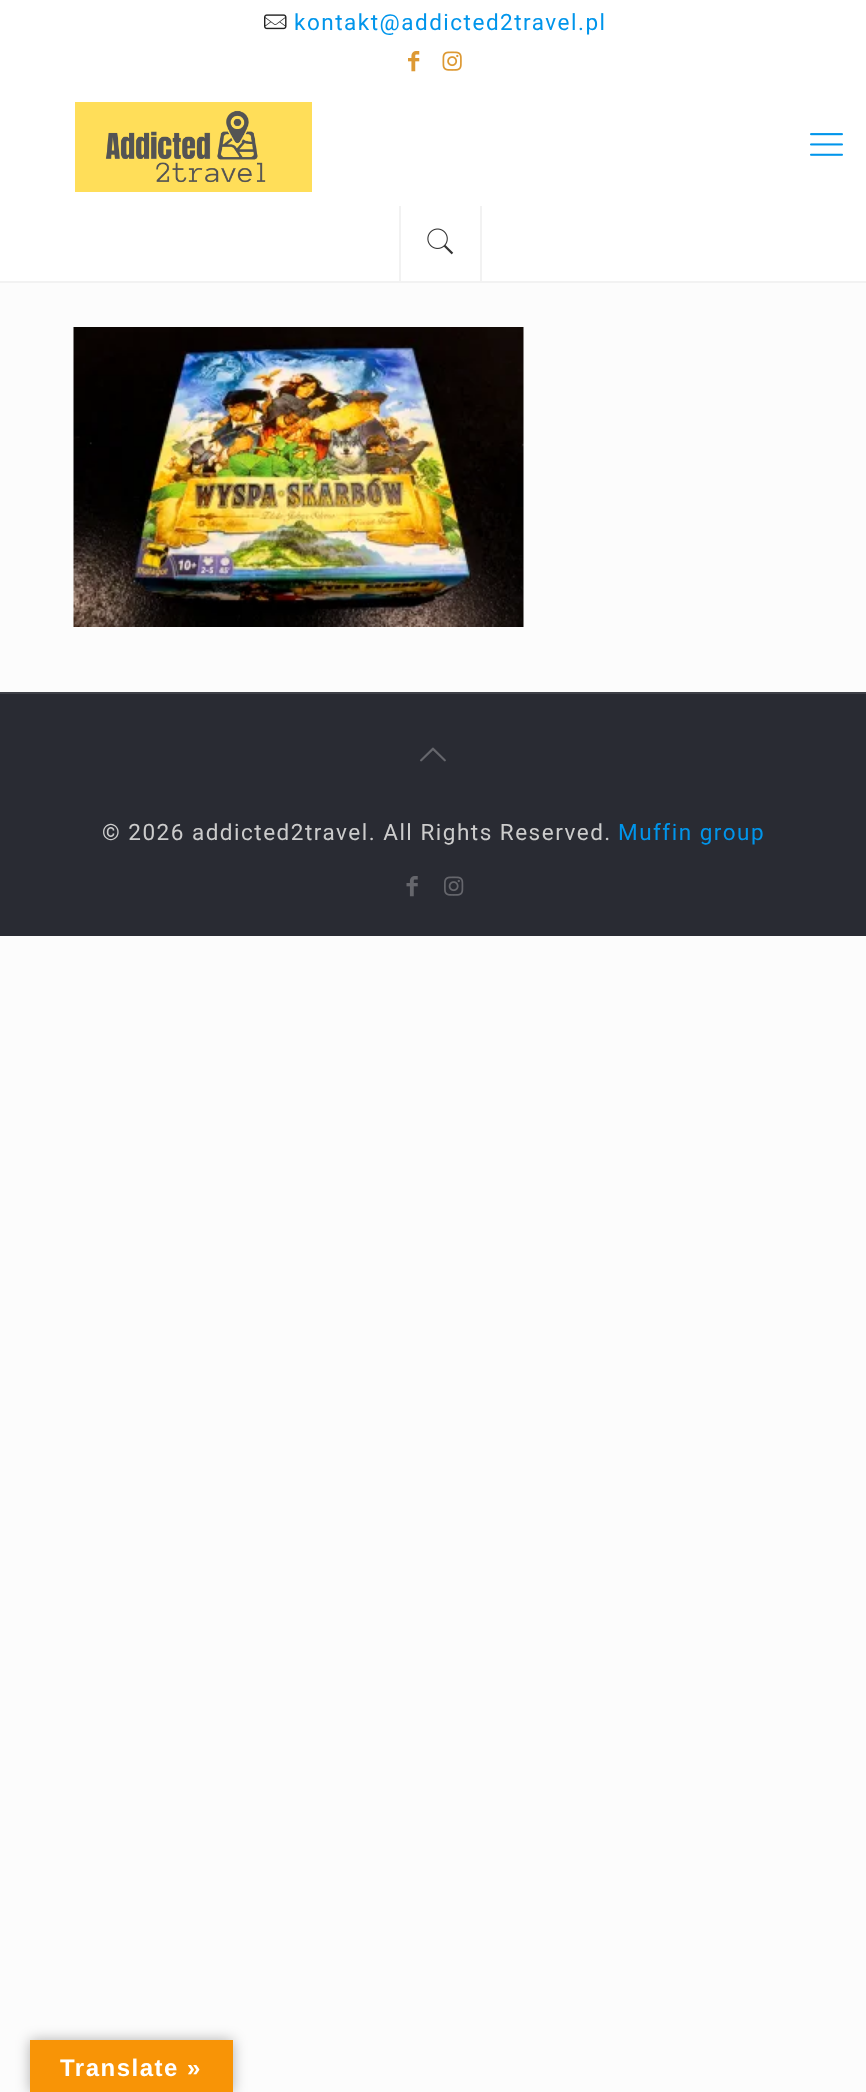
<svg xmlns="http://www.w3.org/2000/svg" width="866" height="2092">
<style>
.a{font:22.5px Roboto;letter-spacing:1.5px;fill:#0095eb}
.b{font:22.5px Roboto;letter-spacing:1.5px;fill:#ccc}
.c{font:bold 24px Liberation Sans;letter-spacing:1.5px;fill:#fff}
</style>
<rect width="100%" height="100%" fill="#fcfcfc"/>
<path fill="#fff" d="M0 0h866v281H0z"/>
<image href="1.png" x="264" y="14" width="23" height="16"/>
<image href="2.png" x="408" y="51" width="12" height="21"/>
<image href="3.png" x="442" y="51" width="20" height="20"/>
<path fill="#f2f2f2" d="M0 281h866v2H0z"/>
<image href="4.png" x="75" y="102" width="237" height="90"/>
<image href="5.png" x="810" y="133" width="33" height="23"/>
<path fill="#f2f2f2" d="M480 206h2v75H480z"/>
<path fill="#f2f2f2" d="M399 206h2v75H399z"/>
<image href="6.png" x="427" y="228" width="27" height="27"/>
<image href="7.png" x="73" y="327" width="451" height="300"/>
<path fill="#292b33" d="M0 694h866v242H0z"/>
<path fill="#3e4047" d="M0 692h866v2H0z"/>
<image href="8.png" x="420" y="747" width="26" height="15"/>
<image href="9.png" x="406" y="876" width="12" height="21"/>
<image href="10.png" x="444" y="876" width="20" height="20"/>
<path fill="#0000004d" filter="blur(7px)" d="M30 2040h203v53H30z"/>
<path fill="#f89406" d="M30 2040h203v52H30z"/>
<text class="a" x="294" y="30">kontakt@addicted2travel.pl</text>
<text class="b" x="102" y="840">© 2026 addicted2travel. All Rights Reserved.</text>
<text class="a" x="618" y="840">Muffin group</text>
<text class="c" x="60" y="2076">Translate »</text>
</svg>
